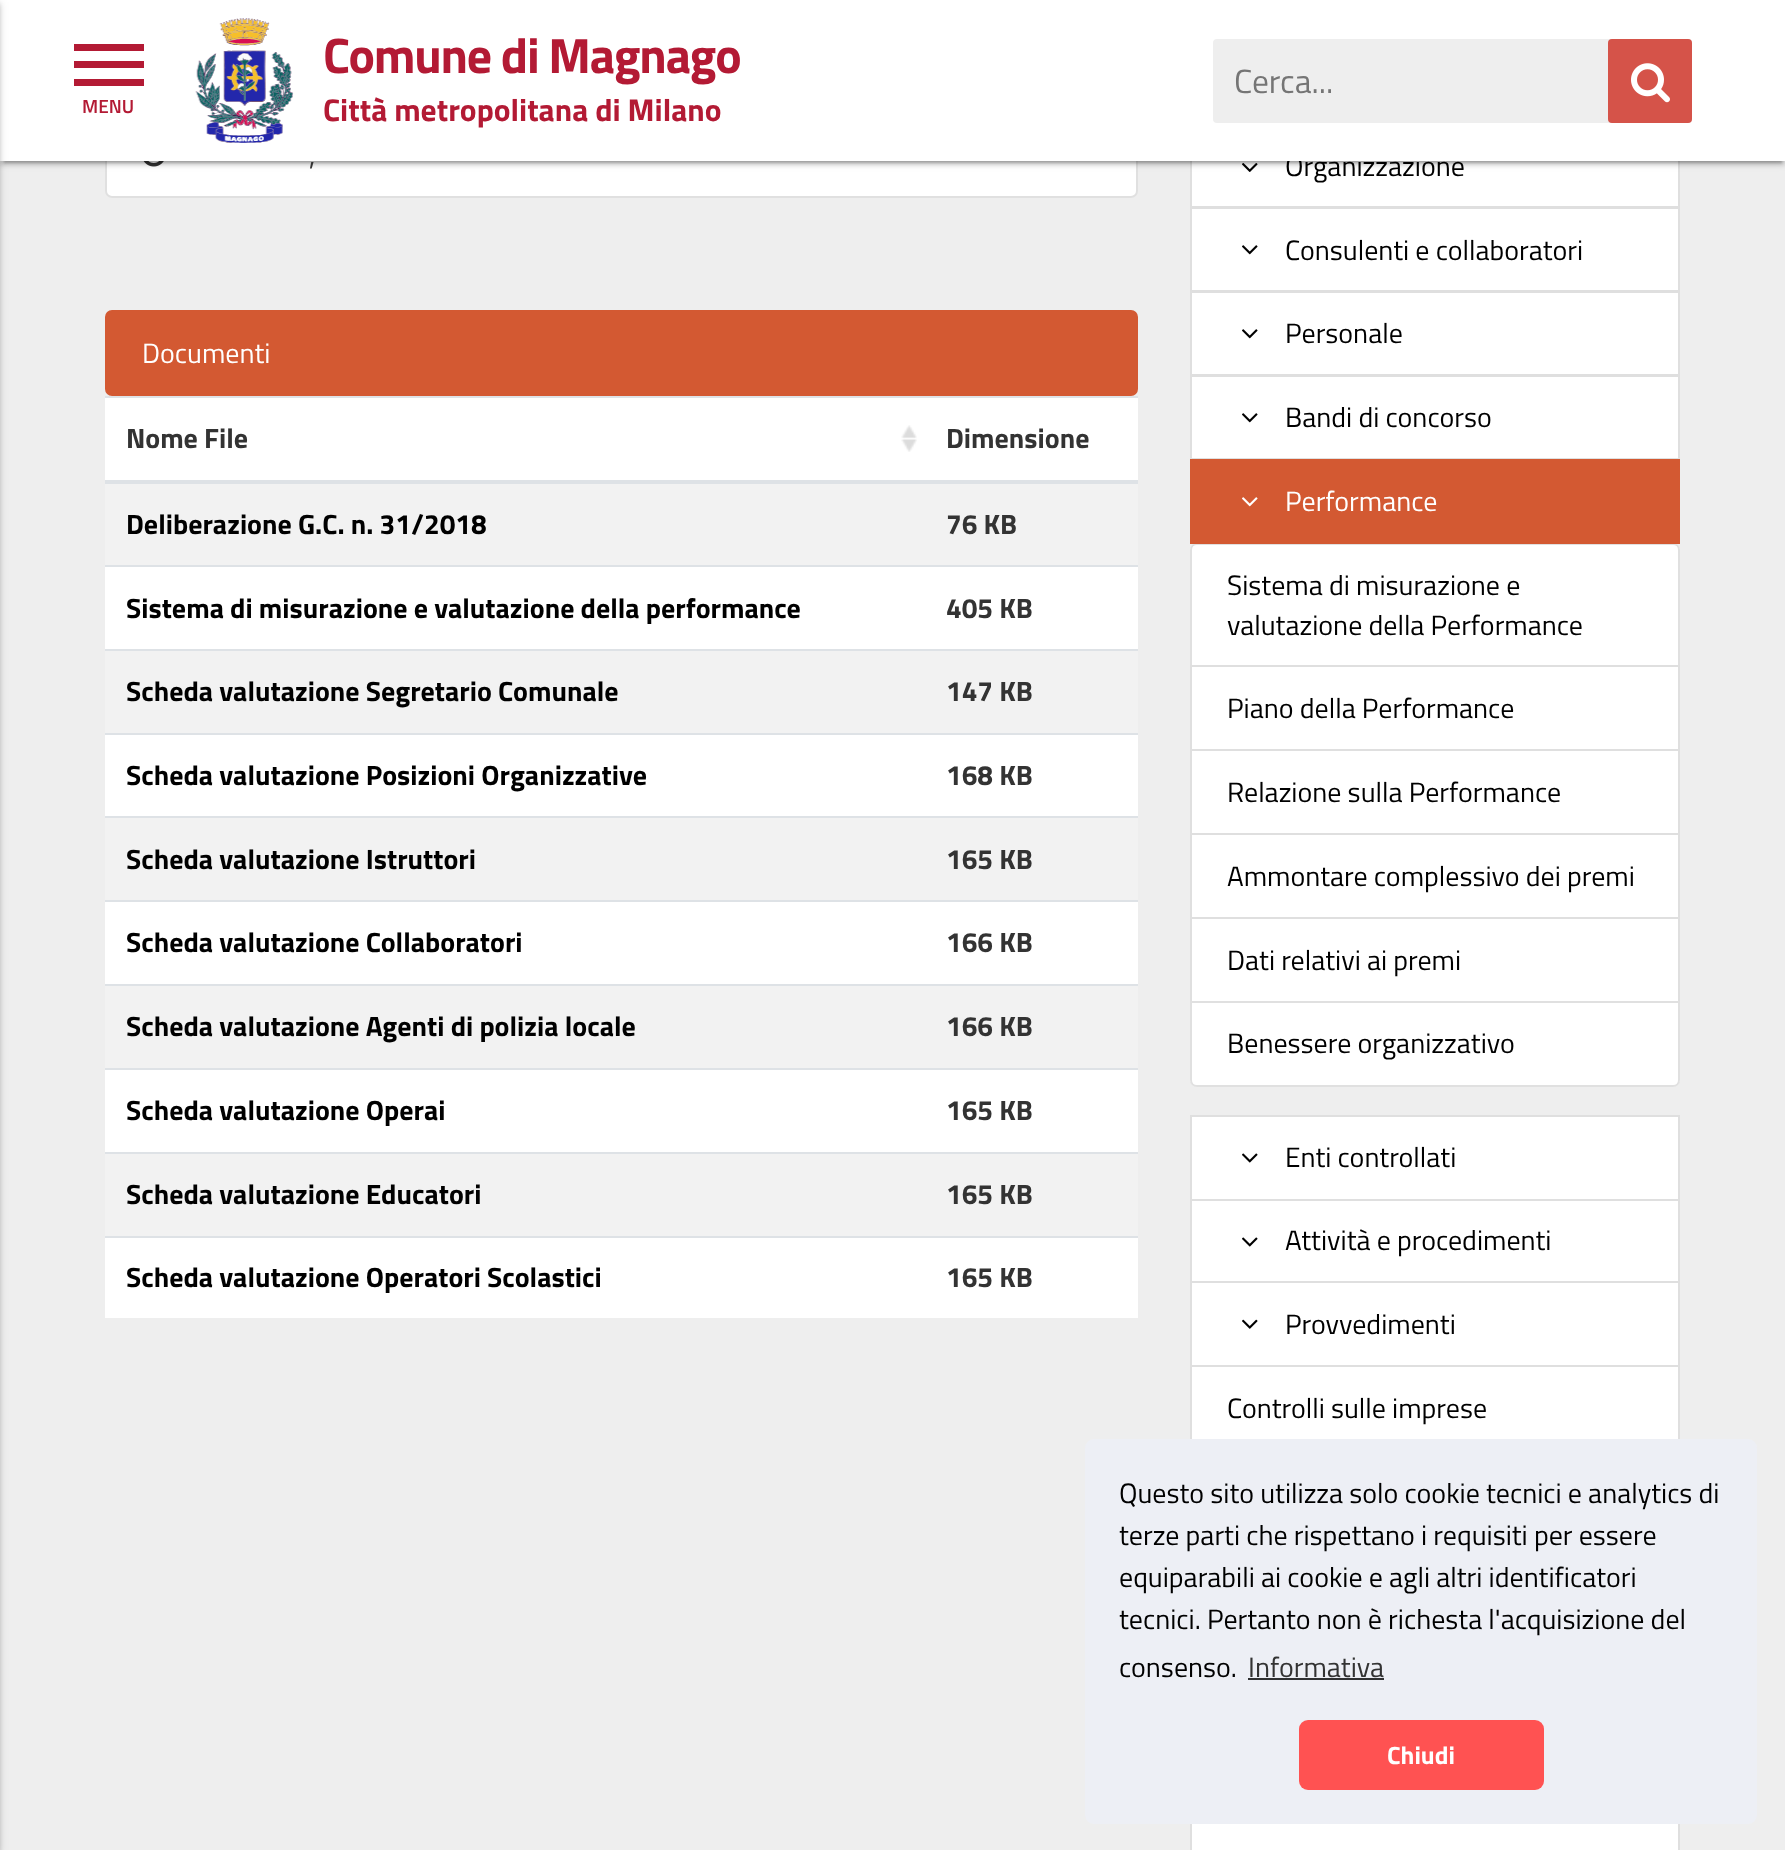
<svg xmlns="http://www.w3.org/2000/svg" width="1785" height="1850">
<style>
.a{font:28px Titillium Web;fill:#333}
.b{font:28px Titillium Web;fill:#fff}
.c{font:bold 28px Titillium Web;fill:#333}
.d{font:bold 28px Titillium Web;fill:#000}
.e{font:28px Titillium Web;fill:#000}
.f{font:33.5px Titillium Web;fill:#757575}
.g{font:bold 31.5px Titillium Web;fill:#b31a34}
.h{font:bold 49.75px Titillium Web;letter-spacing:-1.2px;fill:#b31a34}
.i{font:600 19px Titillium Web;fill:#b31a34}
.j{font:bold 25px Titillium Web;fill:#fff}
</style>
<rect width="100%" height="100%" fill="#eee"/>
<rect fill="#fff" x="105" y="112" width="1033" height="86" rx="7"/>
<rect fill="none" stroke="#0000001f" stroke-width="2" x="106" y="113" width="1031" height="84" rx="6"/>
<image href="3.png" x="143" y="161" width="21" height="6"/>
<path fill="#fff" d="M1192 161h486v45H1192z"/>
<path fill="none" stroke="#dfdfdf" stroke-width="2" d="M1191 125h488v82H1191z"/>
<image href="5.png" x="1242" y="163" width="16" height="9"/>
<path fill="#0000001f" filter="blur(4.5px)" d="M0 2h1785v161H0z"/>
<path fill="#00000033" filter="blur(1px)" d="M4 9h1778v154H4z"/>
<path fill="#00000024" filter="blur(2px)" d="M0 4h1785v161H0z"/>
<rect fill="#d35932" stroke="#d35932" stroke-width="2" x="106" y="311" width="1031" height="84" rx="6"/>
<path fill="#fff" d="M105 398h1033v920H105z"/>
<image href="4.png" x="901" y="425" width="16" height="27"/>
<path fill="#dee2e6" d="M105 396h1033v2H105z"/>
<path fill="#dee2e6" d="M105 480h1033v4H105z"/>
<path fill="#f2f2f2" d="M105 484h1033v81H105z"/>
<path fill="#dee2e6" d="M105 565h1033v2H105z"/>
<path fill="#f2f2f2" d="M105 651h1033v82H105z"/>
<path fill="#dee2e6" d="M105 649h1033v2H105z"/>
<path fill="#dee2e6" d="M105 733h1033v2H105z"/>
<path fill="#f2f2f2" d="M105 818h1033v82H105z"/>
<path fill="#dee2e6" d="M105 816h1033v2H105z"/>
<path fill="#dee2e6" d="M105 900h1033v2H105z"/>
<path fill="#f2f2f2" d="M105 986h1033v82H105z"/>
<path fill="#dee2e6" d="M105 984h1033v2H105z"/>
<path fill="#dee2e6" d="M105 1068h1033v2H105z"/>
<path fill="#f2f2f2" d="M105 1154h1033v82H105z"/>
<path fill="#dee2e6" d="M105 1152h1033v2H105z"/>
<path fill="#dee2e6" d="M105 1236h1033v2H105z"/>
<path fill="#fff" stroke="#dfdfdf" stroke-width="2" d="M1191 208h488v83H1191z"/>
<image href="6.png" x="1242" y="245" width="16" height="10"/>
<path fill="#fff" stroke="#dfdfdf" stroke-width="2" d="M1191 292h488v83H1191z"/>
<image href="6.png" x="1242" y="329" width="16" height="10"/>
<path fill="#fff" stroke="#dfdfdf" stroke-width="2" d="M1191 376h488v83H1191z"/>
<image href="6.png" x="1242" y="413" width="16" height="10"/>
<path fill="#fff" d="M1197 543h476c4 0 7 3 7 7v117h-490v-117c0-4 3-7 7-7z"/>
<path fill="none" stroke="#0000001f" stroke-width="2" d="M1197 544h476c3.5 0 6 2.5 6 6v116h-488v-116c0-3.5 2.5-6 6-6z"/>
<path fill="#d35932" d="M1190 459h490v85H1190z"/>
<image href="7.png" x="1242" y="497" width="16" height="10"/>
<path fill="#fff" stroke="#dfdfdf" stroke-width="2" d="M1191 666h488v84H1191z"/>
<path fill="#fff" stroke="#dfdfdf" stroke-width="2" d="M1191 750h488v84H1191z"/>
<path fill="#fff" stroke="#dfdfdf" stroke-width="2" d="M1191 834h488v84H1191z"/>
<path fill="#fff" stroke="#dfdfdf" stroke-width="2" d="M1191 918h488v84H1191z"/>
<path fill="#fff" d="M1190 1001h490v79c0 4-3 7-7 7h-476c-4 0-7-3-7-7z"/>
<path fill="none" stroke="#0000001f" stroke-width="2" d="M1191 1002h488v78c0 3.5-2.5 6-6 6h-476c-3.5 0-6-2.5-6-6z"/>
<path fill="#fff" stroke="#dfdfdf" stroke-width="2" d="M1191 1116h488v84H1191z"/>
<image href="8.png" x="1242" y="1153" width="16" height="10"/>
<path fill="#fff" stroke="#dfdfdf" stroke-width="2" d="M1191 1200h488v82H1191z"/>
<image href="8.png" x="1242" y="1237" width="16" height="10"/>
<path fill="#fff" stroke="#dfdfdf" stroke-width="2" d="M1191 1282h488v84H1191z"/>
<image href="9.png" x="1242" y="1319" width="16" height="10"/>
<path fill="#fff" d="M1192 1367h486v72H1192z"/>
<path fill="none" stroke="#dfdfdf" stroke-width="2" d="M1191 1366h488v84H1191z"/>
<path fill="#fff" d="M1192 1824h486v26H1192z"/>
<path fill="none" stroke="#dfdfdf" stroke-width="2" d="M1191 1741h488v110H1191z"/>
<rect fill="#edeff5" x="1085" y="1439" width="672" height="385" rx="9"/>
<path fill="#2f3031" d="M1248 1678h136v2H1248z"/>
<rect fill="#ff5252" x="1299" y="1720" width="245" height="70" rx="9"/>
<text class="a" x="309" y="165">,</text>
<text class="b" x="142" y="363">Documenti</text>
<text class="c" x="126" y="448">Nome File</text>
<text class="c" x="946" y="448">Dimensione</text>
<text class="d" x="126" y="534">Deliberazione G.C. n. 31/2018</text>
<text class="c" x="946" y="534">76 KB</text>
<text class="d" x="126" y="618">Sistema di misurazione e valutazione della performance</text>
<text class="c" x="946" y="618">405 KB</text>
<text class="d" x="126" y="701">Scheda valutazione Segretario Comunale</text>
<text class="c" x="946" y="701">147 KB</text>
<text class="d" x="126" y="785">Scheda valutazione Posizioni Organizzative</text>
<text class="c" x="946" y="785">168 KB</text>
<text class="d" x="126" y="869">Scheda valutazione Istruttori</text>
<text class="c" x="946" y="869">165 KB</text>
<text class="d" x="126" y="952">Scheda valutazione Collaboratori</text>
<text class="c" x="946" y="952">166 KB</text>
<text class="d" x="126" y="1036">Scheda valutazione Agenti di polizia locale</text>
<text class="c" x="946" y="1036">166 KB</text>
<text class="d" x="126" y="1120">Scheda valutazione Operai</text>
<text class="c" x="946" y="1120">165 KB</text>
<text class="d" x="126" y="1204">Scheda valutazione Educatori</text>
<text class="c" x="946" y="1204">165 KB</text>
<text class="d" x="126" y="1287">Scheda valutazione Operatori Scolastici</text>
<text class="c" x="946" y="1287">165 KB</text>
<text class="e" x="1285" y="176">Organizzazione</text>
<path fill="#fff" d="M0 0h1785v161H0z"/>
<path fill="#00000024" filter="blur(2px)" d="M-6 4h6v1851H-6z"/>
<path fill="#0000001f" filter="blur(4.5px)" d="M-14 2h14v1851H-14z"/>
<rect fill="#eee" x="1213" y="39" width="479" height="84" rx="4"/>
<rect fill="#d55349" x="1608" y="39" width="84" height="84" rx="4"/>
<image href="2.png" x="1631" y="63" width="39" height="40"/>
<text class="f" x="1234" y="93">Cerca...</text>
<text class="g" x="323" y="121">Città metropolitana di Milano</text>
<text class="h" x="323" y="73">Comune di Magnago</text>
<image href="1.png" x="195" y="18" width="99" height="125"/>
<text class="i" x="82" y="113">MENU</text>
<path fill="#b31a34" d="M74 44h70v7H74z"/>
<path fill="#b31a34" d="M74 61h70v7H74z"/>
<path fill="#b31a34" d="M74 79h70v7H74z"/>
<text class="e" x="1285" y="260">Consulenti e collaboratori</text>
<text class="e" x="1285" y="343">Personale</text>
<text class="e" x="1285" y="427">Bandi di concorso</text>
<text class="b" x="1285" y="511">Performance</text>
<text class="e" x="1227" y="595">Sistema di misurazione e</text>
<text class="e" x="1227" y="635">valutazione della Performance</text>
<text class="e" x="1227" y="718">Piano della Performance</text>
<text class="e" x="1227" y="802">Relazione sulla Performance</text>
<text class="e" x="1227" y="886">Ammontare complessivo dei premi</text>
<text class="e" x="1227" y="970">Dati relativi ai premi</text>
<text class="e" x="1227" y="1053">Benessere organizzativo</text>
<text class="e" x="1285" y="1167">Enti controllati</text>
<text class="e" x="1285" y="1250">Attività e procedimenti</text>
<text class="e" x="1285" y="1334">Provvedimenti</text>
<text class="e" x="1227" y="1418">Controlli sulle imprese</text>
<text class="e" x="1119" y="1503">Questo sito utilizza solo cookie tecnici e analytics di</text>
<text class="e" x="1119" y="1545">terze parti che rispettano i requisiti per essere</text>
<text class="e" x="1119" y="1587">equiparabili ai cookie e agli altri identificatori</text>
<text class="e" x="1119" y="1629">tecnici. Pertanto non è richesta l'acquisizione del</text>
<text class="e" x="1119" y="1677">consenso.</text>
<text class="a" x="1248" y="1677">Informativa</text>
<text class="j" x="1387" y="1764">Chiudi</text>
</svg>
